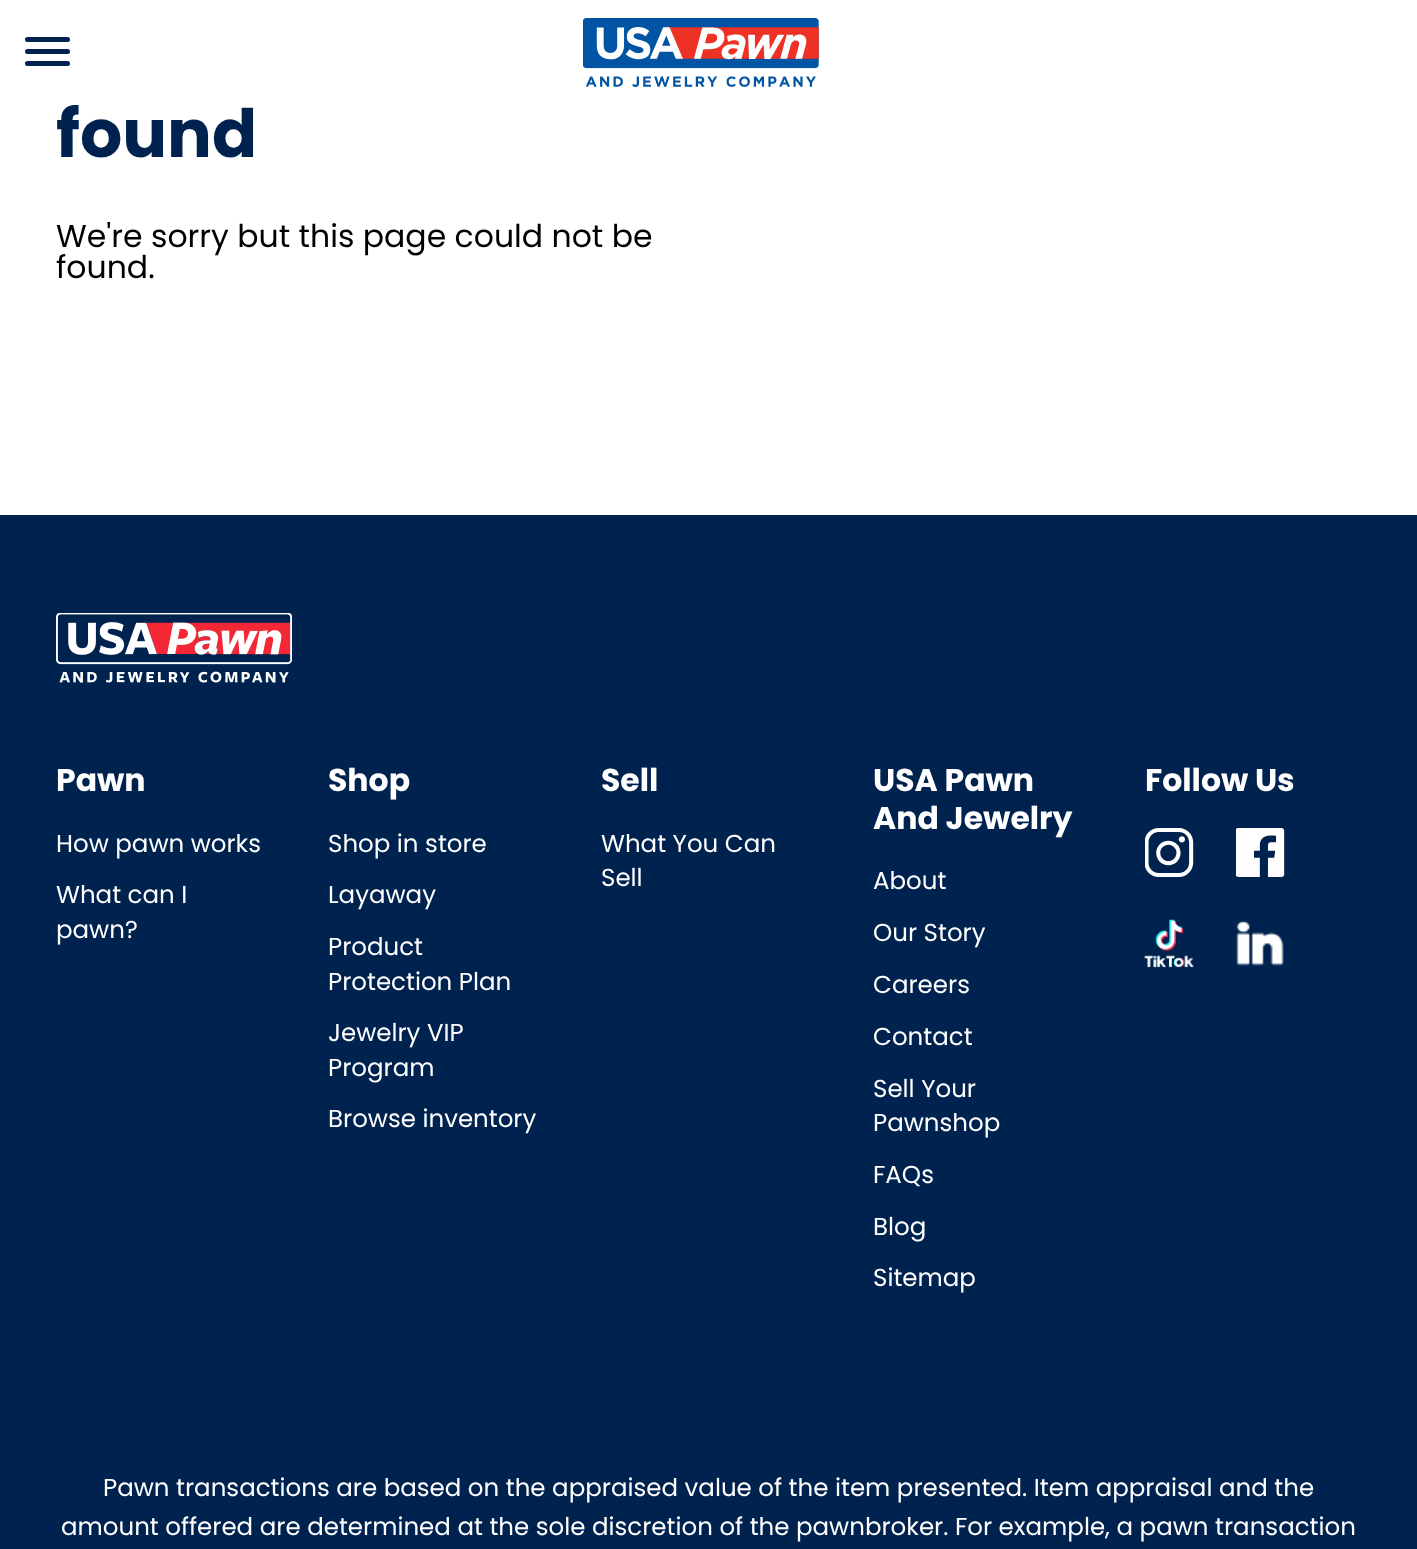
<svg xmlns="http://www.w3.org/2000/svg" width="1417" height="1549">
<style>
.a{font:bold 66.5px Poppins;fill:#00224e}
.b{font:31.5px Poppins;fill:#000}
.c{font:bold 31.5px Poppins;fill:#fff}
.d{font:24.5px Poppins;fill:#fff}
</style>
<rect width="100%" height="100%" fill="#00224e"/>
<path fill="#fff" d="M0 105h1417v410H0z"/>
<image href="2.png" x="56" y="613" width="236" height="70"/>
<image href="3.png" x="1145" y="828" width="49" height="49"/>
<image href="4.png" x="1236" y="828" width="49" height="49"/>
<image href="5.png" x="1144" y="919" width="50" height="49"/>
<image href="6.png" x="1236" y="921" width="48" height="45"/>
<text class="a" x="56" y="157">found</text>
<path fill="#fff" d="M0 0h1417v105H0z"/>
<rect fill="#00224e" x="25" y="61" width="45" height="5" rx="2.5"/>
<rect fill="#00224e" x="25" y="37" width="45" height="5" rx="2.5"/>
<rect fill="#00224e" x="25" y="49" width="45" height="5" rx="2.5"/>
<image href="1.png" x="583" y="18" width="236" height="69"/>
<text class="b" x="56" y="247">We're sorry but this page could not be</text>
<text class="b" x="56" y="278">found.</text>
<text class="c" x="56" y="791">Pawn</text>
<text class="d" x="56" y="852">How pawn works</text>
<text class="d" x="56" y="903">What can I</text>
<text class="d" x="56" y="938">pawn?</text>
<text class="c" x="328" y="791">Shop</text>
<text class="d" x="328" y="852">Shop in store</text>
<text class="d" x="328" y="903">Layaway</text>
<text class="d" x="328" y="955">Product</text>
<text class="d" x="328" y="990">Protection Plan</text>
<text class="d" x="328" y="1041">Jewelry VIP</text>
<text class="d" x="328" y="1076">Program</text>
<text class="d" x="328" y="1127">Browse inventory</text>
<text class="c" x="601" y="791">Sell</text>
<text class="d" x="601" y="852">What You Can</text>
<text class="d" x="601" y="886">Sell</text>
<text class="c" x="873" y="791">USA Pawn</text>
<text class="c" x="873" y="829">And Jewelry</text>
<text class="d" x="873" y="889">About</text>
<text class="d" x="873" y="941">Our Story</text>
<text class="d" x="873" y="993">Careers</text>
<text class="d" x="873" y="1045">Contact</text>
<text class="d" x="873" y="1097">Sell Your</text>
<text class="d" x="873" y="1131">Pawnshop</text>
<text class="d" x="873" y="1183">FAQs</text>
<text class="d" x="873" y="1235">Blog</text>
<text class="d" x="873" y="1286">Sitemap</text>
<text class="c" x="1145" y="791">Follow Us</text>
<text class="d" x="103" y="1496">Pawn transactions are based on the appraised value of the item presented. Item appraisal and the</text>
<text class="d" x="61" y="1535">amount offered are determined at the sole discretion of the pawnbroker. For example, a pawn transaction</text>
</svg>
